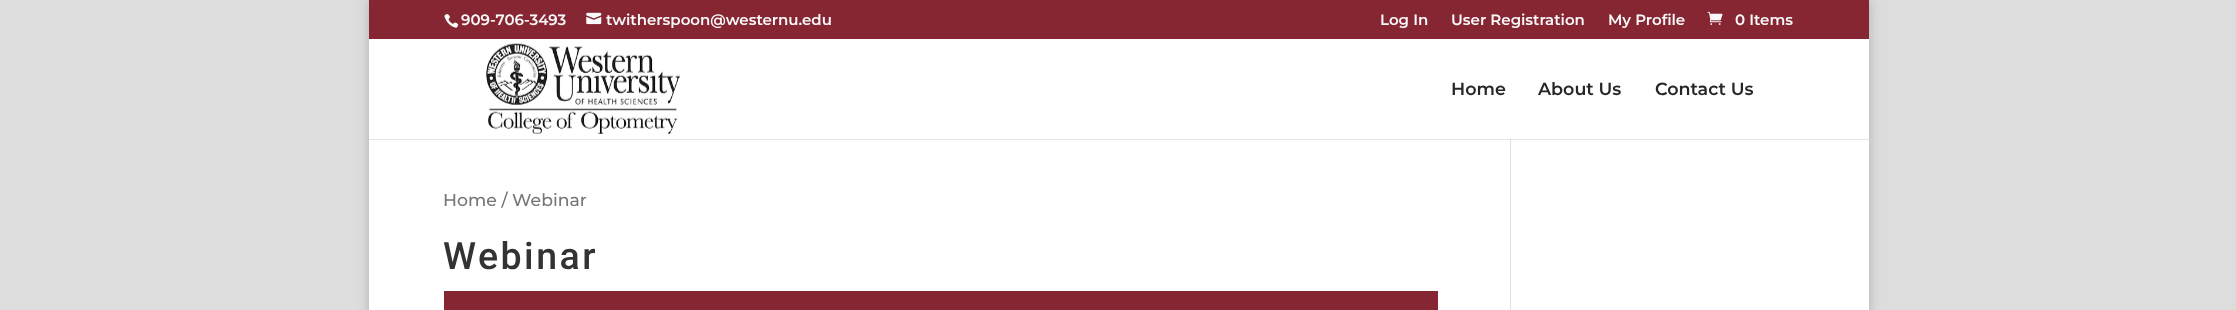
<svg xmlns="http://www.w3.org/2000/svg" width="2236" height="310">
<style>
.a{font:600 15px Montserrat;fill:#f9f9f9}
.b{font:600 17.5px Montserrat;fill:#262626}
.c{font:500 17.25px Montserrat;fill:#767676}
.d{font:500 37.5px Roboto;letter-spacing:2.5px;fill:#333}
</style>
<rect width="100%" height="100%" fill="#ddd"/>
<path fill="#00000033" filter="blur(6px)" d="M369 -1h1500v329H369z"/>
<path fill="#862633" d="M369 0h1500v39H369z"/>
<image href="1.png" x="444" y="14" width="15" height="14"/>
<image href="2.png" x="586" y="12" width="16" height="13"/>
<image href="3.png" x="1707" y="11" width="16" height="14"/>
<path fill="#fff" d="M369 139h1500v171H369z"/>
<path fill="#e2e2e2" d="M1510 138h1v172H1510z"/>
<path fill="#0000001a" d="M369 139v1h1500v-100v99z"/>
<path fill="#fff" d="M369 39h1500v100H369z"/>
<image href="4.png" x="486" y="43" width="194" height="91"/>
<path fill="#862633" d="M444 291h994v19H444z"/>
<text class="a" x="461" y="25">909-706-3493</text>
<text class="a" x="606" y="25">twitherspoon@westernu.edu</text>
<text class="a" x="1380" y="25">Log In</text>
<text class="a" x="1451" y="25">User Registration</text>
<text class="a" x="1608" y="25">My Profile</text>
<text class="a" x="1735" y="25">0 Items</text>
<text class="b" x="1451" y="95">Home</text>
<text class="b" x="1538" y="95">About Us</text>
<text class="b" x="1655" y="95">Contact Us</text>
<text class="c" x="443" y="206">Home / Webinar</text>
<text class="d" x="443" y="269">Webinar</text>
</svg>
